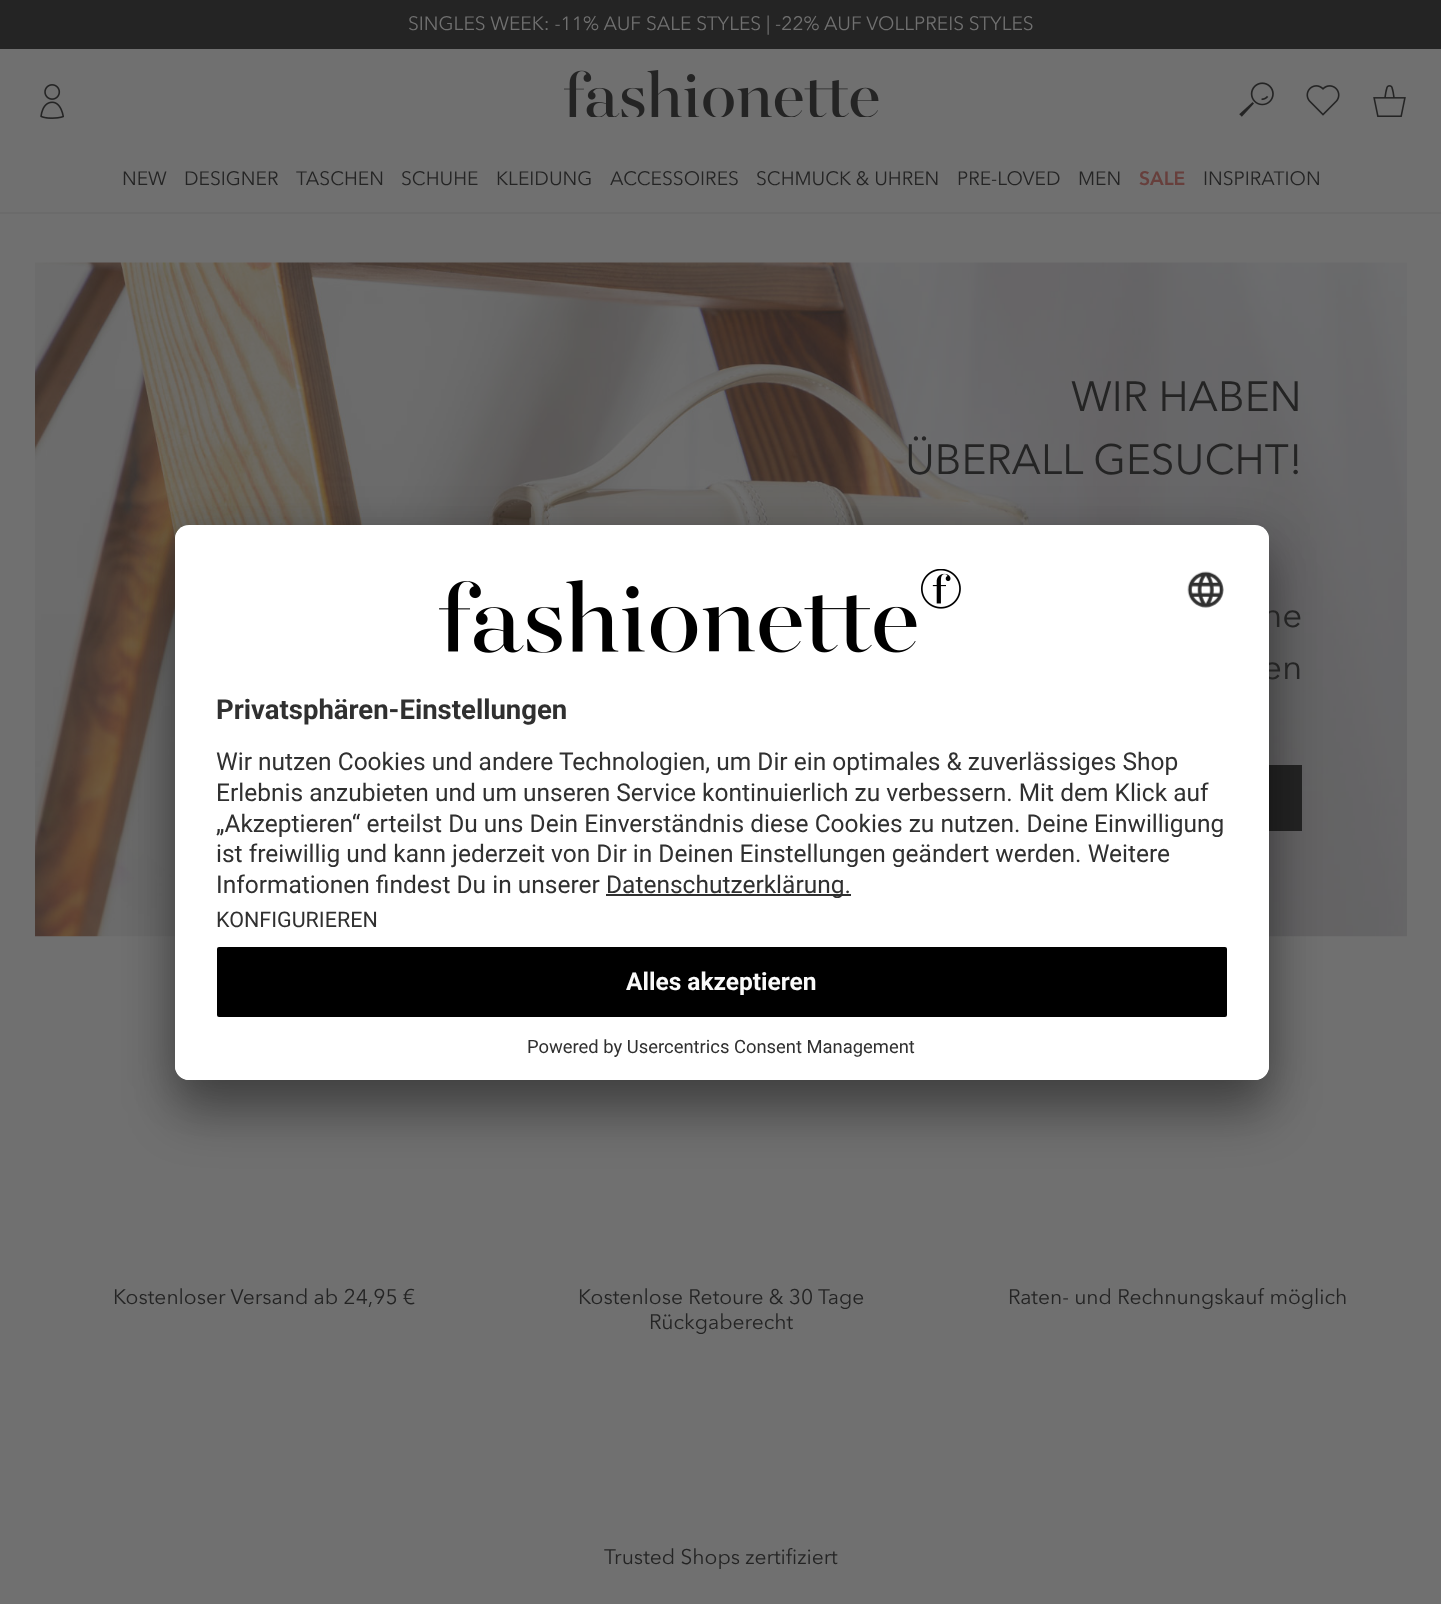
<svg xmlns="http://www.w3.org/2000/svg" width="1441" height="1604">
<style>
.a{font:19.25px Avenir Next;fill:#707070}
.b{font:19.25px Avenir Next;fill:#242424}
.c{font:600 19.25px Avenir Next;fill:#673f3c}
.d{font:42px Avenir Next;fill:#242424}
.e{font:35px Avenir Next;fill:#242424}
.f{font:21px Avenir Next;fill:#242424}
.g{font:bold 27.5px Roboto;fill:#303030}
.h{font:24.5px Roboto;fill:#303030}
.i{font:21.5px Roboto;fill:#303030}
.j{font:bold 24.5px Roboto;fill:#fafafa}
.k{font:18.4px Roboto;fill:#303030}
</style>
<defs>
<clipPath id="clip1"><rect x="175" y="525" width="1094" height="555" rx="14"/></clipPath>
<clipPath id="clip2"><path d="M189 525h1066c7.5 0 14 6.5 14 14v394h-1094v-394c0-7.5 6.5-14 14-14z"/></clipPath>
</defs>
<rect width="100%" height="100%" fill="#707070"/>
<path fill="#242424" d="M0 0h1441v49H0z"/>
<image href="1.png" x="40" y="84" width="24" height="35"/>
<image href="2.png" x="564" y="70" width="315" height="47"/>
<image href="3.png" x="1239" y="82" width="35" height="35"/>
<image href="4.png" x="1306" y="85" width="34" height="31"/>
<image href="5.png" x="1373" y="85" width="33" height="32"/>
<path fill="#6b6b6b" d="M0 212h1441v2H0z"/>
<image href="6.png" x="35" y="262" width="1372" height="675"/>
<path fill="#242424" d="M1269 765h33v66H1269z"/>
<rect fill="#0000004d" filter="blur(24.5px)" x="175" y="560" width="1094" height="555" rx="14"/>
<rect fill="#00000038" filter="blur(23px)" x="175" y="534" width="1094" height="555" rx="14"/>
<text class="a" x="408" y="30">SINGLES WEEK: -11% AUF SALE STYLES | -22% AUF VOLLPREIS STYLES</text>
<text class="b" x="122" y="185">NEW</text>
<text class="b" x="184" y="185">DESIGNER</text>
<text class="b" x="296" y="185">TASCHEN</text>
<text class="b" x="401" y="185">SCHUHE</text>
<text class="b" x="496" y="185">KLEIDUNG</text>
<text class="b" x="610" y="185">ACCESSOIRES</text>
<text class="b" x="756" y="185">SCHMUCK &amp; UHREN</text>
<text class="b" x="957" y="185">PRE-LOVED</text>
<text class="b" x="1078" y="185">MEN</text>
<text class="c" x="1139" y="185">SALE</text>
<text class="b" x="1203" y="185">INSPIRATION</text>
<text class="d" x="1071" y="411">WIR HABEN</text>
<text class="d" x="905" y="474">ÜBERALL GESUCHT!</text>
<text class="e" x="1262" y="627">ne</text>
<text class="e" x="1262" y="679">en</text>
<text class="f" x="113" y="1304">Kostenloser Versand ab 24,95 €</text>
<text class="f" x="578" y="1304">Kostenlose Retoure &amp; 30 Tage</text>
<text class="f" x="649" y="1329">Rückgaberecht</text>
<text class="f" x="1008" y="1304">Raten- und Rechnungskauf möglich</text>
<text class="f" x="604" y="1564">Trusted Shops zertifiziert</text>
<rect fill="#fff" x="175" y="525" width="1094" height="555" rx="14"/>
<g clip-path="url(#clip1)">
<g clip-path="url(#clip2)">
<path fill="#fff" d="M175 527h1094v406H175z"/>
</g>
</g>
<image href="7.png" x="439" y="569" width="522" height="84"/>
<image href="8.png" x="1187" y="571" width="37" height="37"/>
<text class="g" x="216" y="719">Privatsphären-Einstellungen</text>
<text class="h" x="216" y="770">Wir nutzen Cookies und andere Technologien, um Dir ein optimales &amp; zuverlässiges Shop</text>
<text class="h" x="216" y="801">Erlebnis anzubieten und um unseren Service kontinuierlich zu verbessern. Mit dem Klick auf</text>
<text class="h" x="216" y="832">„Akzeptieren“ erteilst Du uns Dein Einverständnis diese Cookies zu nutzen. Deine Einwilligung</text>
<text class="h" x="216" y="862">ist freiwillig und kann jederzeit von Dir in Deinen Einstellungen geändert werden. Weitere</text>
<text class="h" x="216" y="893">Informationen findest Du in unserer</text>
<path fill="#303030" d="M606 894h245v2H606z"/>
<text class="h" x="606" y="893">Datenschutzerklärung.</text>
<text class="i" x="216" y="927">KONFIGURIEREN</text>
<path fill="#fff" d="M175 933h1094v133c0 7.5-6.5 14-14 14h-1066c-7.5 0-14-6.5-14-14z"/>
<rect fill="#000" x="217" y="947" width="1010" height="70" rx="2"/>
<text class="j" x="626" y="990">Alles akzeptieren</text>
<text class="k" x="527" y="1053">Powered by Usercentrics Consent Management</text>
</svg>
